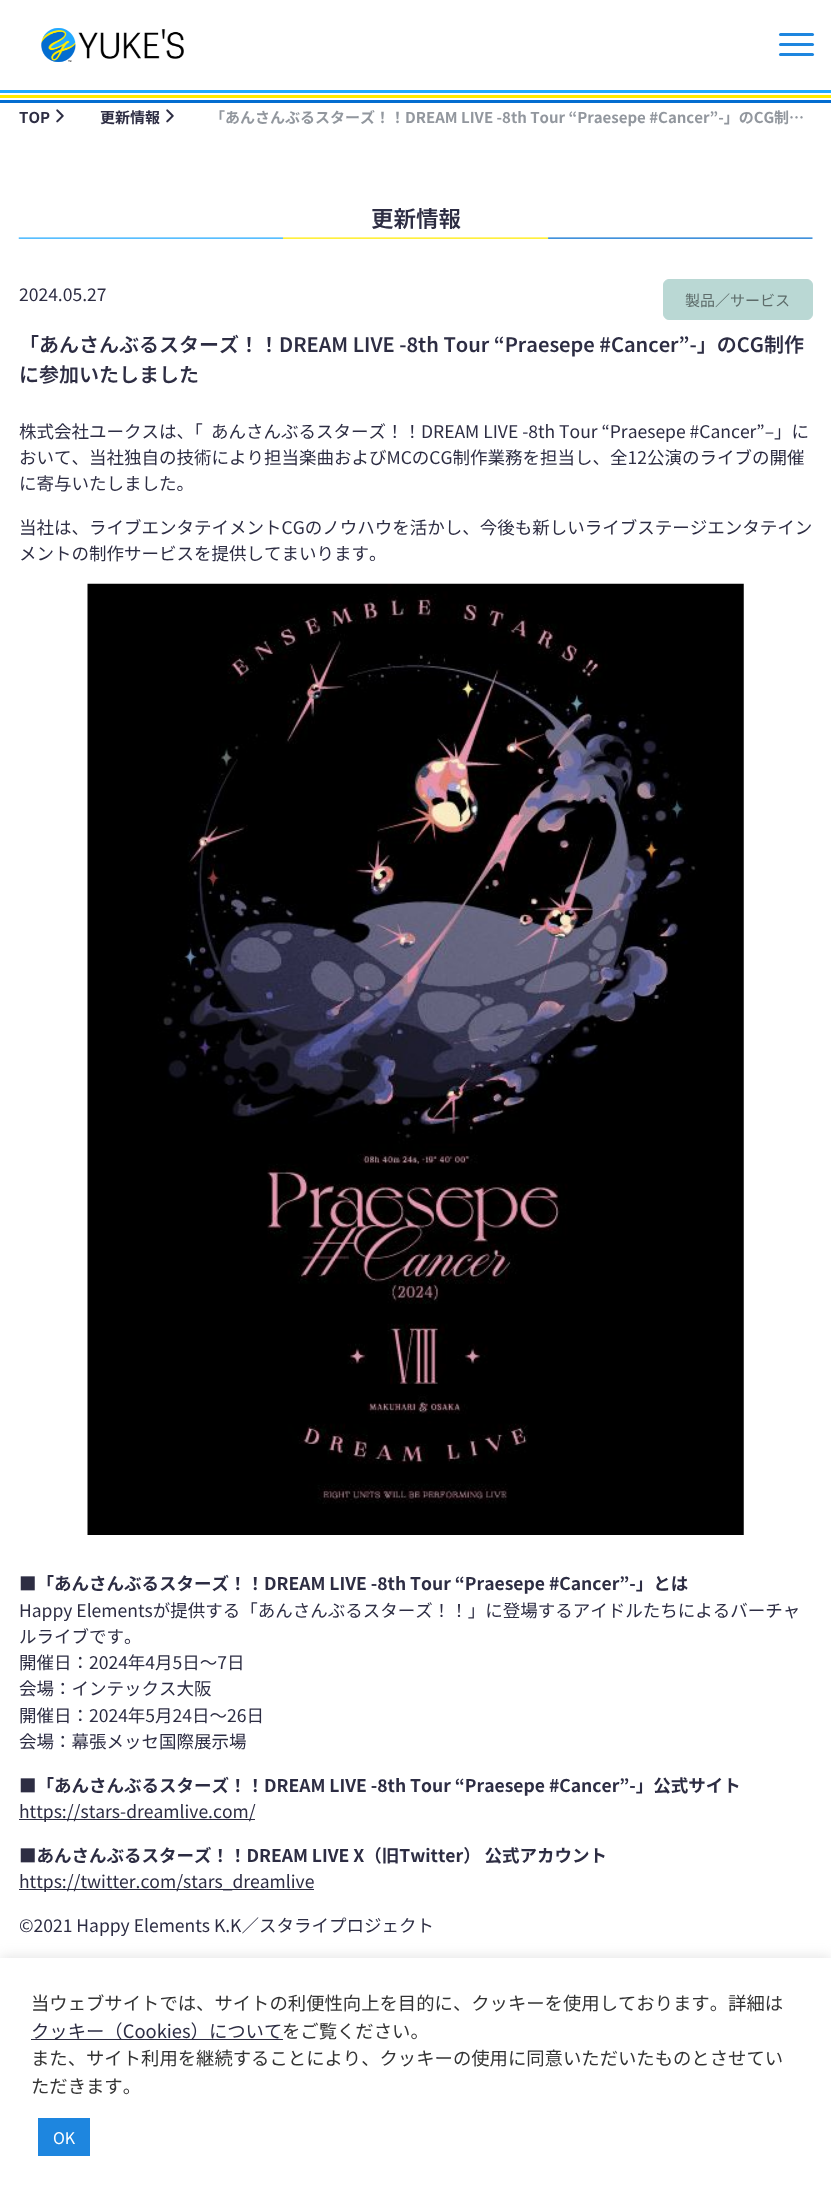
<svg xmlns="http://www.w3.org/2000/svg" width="831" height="2193">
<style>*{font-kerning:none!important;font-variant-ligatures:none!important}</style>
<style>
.a{font:bold 15px Noto Sans JP;fill:#2d2d43}
.b{font:bold 15px Noto Sans JP;fill:#92979e}
.c{font:600 22.5px Noto Sans JP;fill:#2d2d43}
.d{font:17.5px Noto Sans JP;fill:#2d2d43}
.e{font:15px Noto Sans JP;fill:#5d6c6a}
.f{font:600 20px Noto Sans JP;fill:#2d2d43}
.g{font:bold 17.5px Noto Sans JP;fill:#2d2d43}
.h{font:18.35px Noto Sans JP;fill:#333}
.i{font:18.35px Noto Sans JP;fill:#2d2d43}
.j{font:16px Noto Sans JP;fill:#fff}
</style>
<rect width="100%" height="100%" fill="#fff"/>
<image href="1.png" x="41" y="28" width="143" height="34"/>
<rect fill="#1e86df" x="779" y="33" width="35" height="3" rx="1.5"/>
<rect fill="#1e86df" x="779" y="43" width="35" height="3" rx="1.5"/>
<rect fill="#1e86df" x="779" y="53" width="35" height="3" rx="1.5"/>
<path fill="#22a9ff" d="M0 90h831v3H0z"/>
<path fill="#ffea00" d="M0 95h831v3H0z"/>
<path fill="#036dd0" d="M0 100h831v3H0z"/>
<image href="2.png" x="18" y="237" width="795" height="2"/>
<image href="3.png" x="56" y="109" width="8" height="14"/>
<image href="3.png" x="166" y="109" width="8" height="14"/>
<rect fill="#bad8d4" stroke="#bad8d4" x="663.5" y="279.5" width="149" height="40" rx="5.5"/>
<image href="4.png" x="87" y="583" width="657" height="952"/>
<path fill="#2d2d43" d="M19 1819h236v1H19z"/>
<path fill="#2d2d43" d="M19 1889h295v1H19z"/>
<path fill="#acabab4d" filter="blur(6px)" d="M0 1956h831v237H0z"/>
<path fill="#fff" d="M0 1958h831v235H0z"/>
<path fill="#2d2d43" d="M31 2039h252v1H31z"/>
<path fill="#1e86df" d="M38 2118h52v38H38z"/>
<text class="a" x="19" y="123">TOP</text>
<text class="a" x="100" y="123">更新情報</text>
<text class="b" x="210" y="123">「あんさんぶるスターズ！！DREAM LIVE -8th Tour “Praesepe #Cancer”-」のCG</text>
<text class="b" x="774" y="123">制…</text>
<text class="c" x="371" y="227">更新情報</text>
<text class="d" x="19" y="301">2024.05.27</text>
<text class="e" x="685" y="306">製品／サービス</text>
<text class="f" x="19" y="352">「あんさんぶるスターズ！！DREAM LIVE -8th Tour “Praesepe #Cancer”-」のCG</text>
<text class="f" x="764" y="352">制作</text>
<text class="f" x="19" y="382">に参加いたしました</text>
<text class="d" x="19" y="438">株式会社ユークスは、「</text>
<text class="d" x="211" y="438">あんさんぶるスターズ！！DREAM LIVE -8th Tour “Praesepe #Cancer”–」に</text>
<text class="d" x="19" y="464">おいて、当社独自の技術により担当楽曲およびMCのCG制作業務を担当し、全12公演のライブの開催</text>
<text class="d" x="19" y="490">に寄与いたしました。</text>
<text class="d" x="19" y="534">当社は、ライブエンタテイメントCGのノウハウを活かし、今後も新しいライブステージエンタテイン</text>
<text class="d" x="19" y="560">メントの制作サービスを提供してまいります。</text>
<text class="g" x="19" y="1590">■「あんさんぶるスターズ！！DREAM LIVE -8th Tour “Praesepe #Cancer”-」とは</text>
<text class="d" x="19" y="1617">Happy Elementsが提供する「あんさんぶるスターズ！！」に登場するアイドルたちによるバーチャ</text>
<text class="d" x="19" y="1643">ルライブです。</text>
<text class="d" x="19" y="1669">開催日：2024年4月5日～7日</text>
<text class="d" x="19" y="1695">会場：インテックス大阪</text>
<text class="d" x="19" y="1722">開催日：2024年5月24日～26日</text>
<text class="d" x="19" y="1748">会場：幕張メッセ国際展示場</text>
<text class="g" x="19" y="1792">■「あんさんぶるスターズ！！DREAM LIVE -8th Tour “Praesepe #Cancer”-」公式サイト</text>
<text class="d" x="19" y="1818">https://stars-dreamlive.com/</text>
<text class="g" x="19" y="1862">■あんさんぶるスターズ！！DREAM LIVE X（旧Twitter） 公式アカウント</text>
<text class="d" x="19" y="1888">https://twitter.com/stars_dreamlive</text>
<text class="d" x="19" y="1932">©2021 Happy Elements K.K／スタライプロジェクト</text>
<text class="h" x="31" y="2010">当ウェブサイトでは、サイトの利便性向上を目的に、クッキーを使用しております。詳細は</text>
<text class="i" x="31" y="2038">クッキー（Cookies）について</text>
<text class="h" x="282" y="2038">をご覧ください。</text>
<text class="h" x="31" y="2065">また、サイト利用を継続することにより、クッキーの使用に同意いただいたものとさせてい</text>
<text class="h" x="31" y="2093">ただきます。</text>
<text class="j" x="53" y="2144">OK</text>
</svg>
